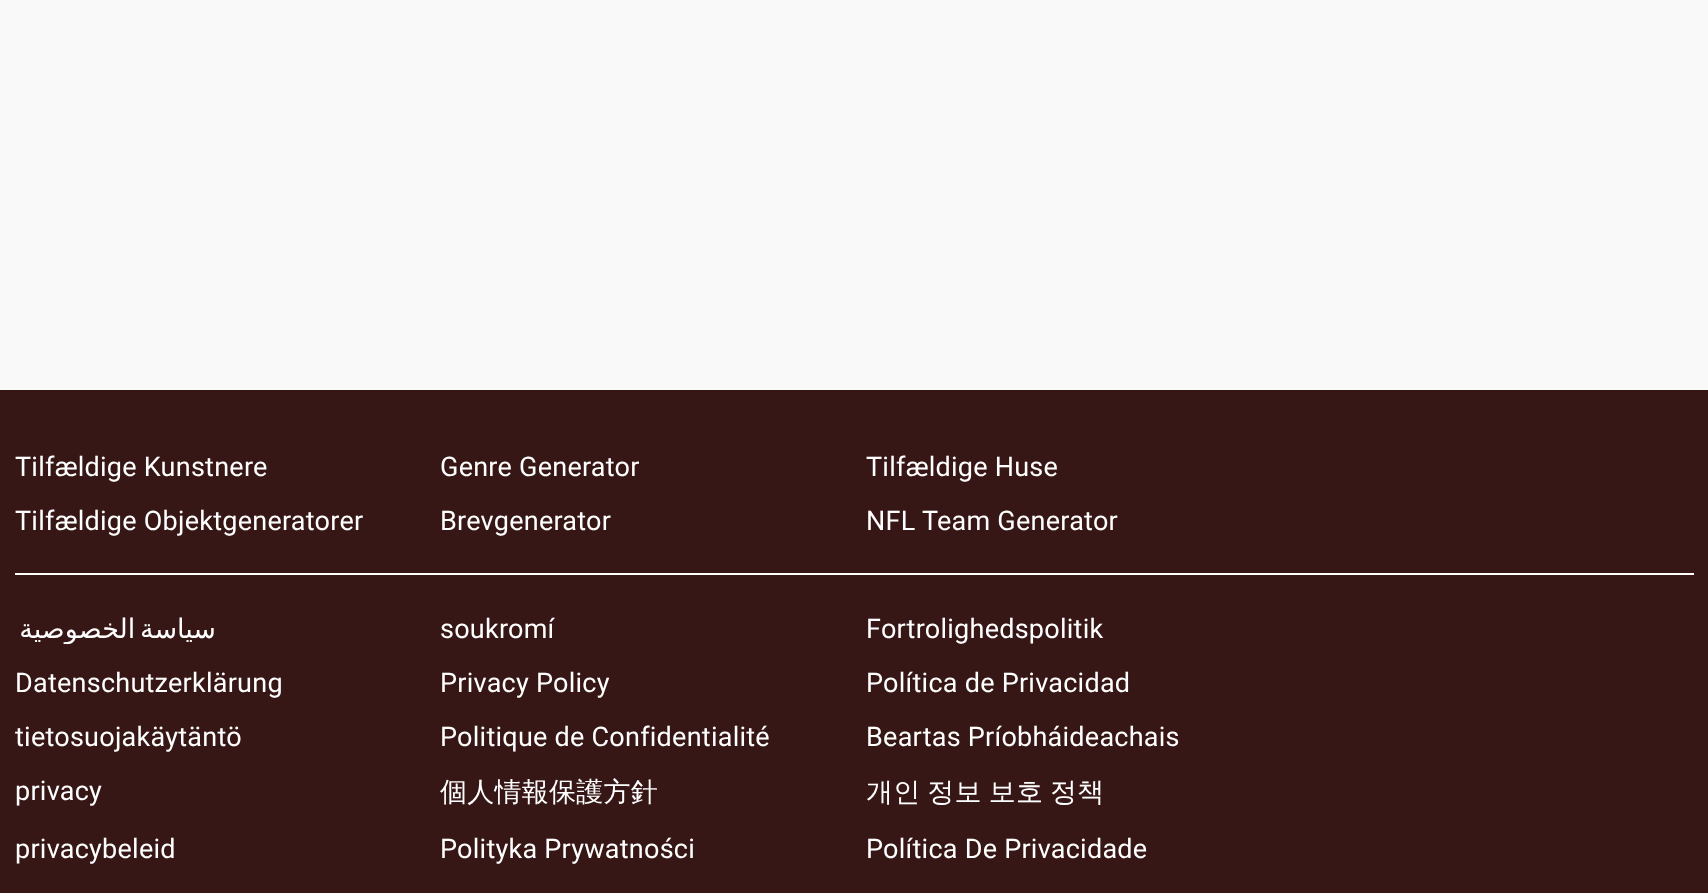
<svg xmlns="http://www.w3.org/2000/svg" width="1708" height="893">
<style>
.a{font:27px Roboto;letter-spacing:0.25px;fill:#fff}
.b{font:27px DejaVu Sans;letter-spacing:0.25px;direction:rtl;fill:#fff}
.c{font:500 27px WenQuanYi Zen Hei;letter-spacing:0.25px;fill:#fff}
</style>
<defs>
<clipPath id="clip1"><path d="M15 612h404v32H15z"/></clipPath>
</defs>
<rect width="100%" height="100%" fill="#f9f9f9"/>
<path fill="#361715" d="M0 390h1708v503H0z"/>
<path fill="#fff" d="M15 573h1679v2H15z"/>
<text class="a" x="15" y="476">Tilfældige Kunstnere</text>
<text class="a" x="440" y="476">Genre Generator</text>
<text class="a" x="866" y="476">Tilfældige Huse</text>
<text class="a" x="15" y="530">Tilfældige Objektgeneratorer</text>
<text class="a" x="440" y="530">Brevgenerator</text>
<text class="a" x="866" y="530">NFL Team Generator</text>
<g clip-path="url(#clip1)">
<text class="b" x="216" y="638" word-spacing="-4">سياسة الخصوصية</text>
</g>
<text class="a" x="440" y="638">soukromí</text>
<text class="a" x="866" y="638">Fortrolighedspolitik</text>
<text class="a" x="15" y="692">Datenschutzerklärung</text>
<text class="a" x="440" y="692">Privacy Policy</text>
<text class="a" x="866" y="692">Política de Privacidad</text>
<text class="a" x="15" y="746">tietosuojakäytäntö</text>
<text class="a" x="440" y="746">Politique de Confidentialité</text>
<text class="a" x="866" y="746">Beartas Príobháideachais</text>
<text class="a" x="15" y="800">privacy</text>
<text class="c" x="440" y="801">個人情報保護方針</text>
<text class="c" x="866" y="801" word-spacing="-1.5">개인 정보 보호 정책</text>
<text class="a" x="15" y="858">privacybeleid</text>
<text class="a" x="440" y="858">Polityka Prywatności</text>
<text class="a" x="866" y="858">Política De Privacidade</text>
</svg>
